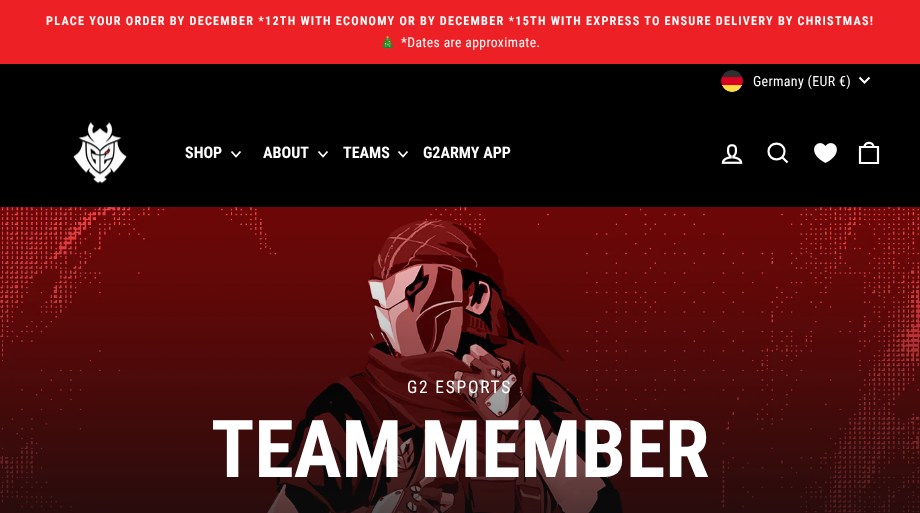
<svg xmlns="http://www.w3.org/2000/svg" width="920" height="513">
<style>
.a{font:bold 12.25px Roboto Condensed;letter-spacing:1.22px;fill:#fff}
.b{font:bold 12.25px Noto Color Emoji;letter-spacing:1.22px;fill:#fff}
.c{font:13.6px Roboto Condensed;letter-spacing:0.4px;fill:#fff}
.d{font:14px Roboto Condensed;letter-spacing:0.3px;fill:#fff}
.e{font:bold 16px Roboto Condensed;fill:#fff}
.f{font:17.5px Roboto Condensed;letter-spacing:1.75px;fill:#fff}
.g{font:bold 80px Roboto Condensed;fill:#fff}
</style>
<rect width="100%" height="100%" fill="#000"/>
<path fill="#ed2025" d="M0 0h920v64H0z"/>
<image href="1.png" x="721" y="70" width="22" height="22"/>
<path fill="none" stroke="#fff" stroke-width="2" d="M859.5 77.5l5 5l5-5"/>
<image href="2.png" x="73" y="122" width="54" height="62"/>
<path fill="none" stroke="#fff" stroke-width="1.8" d="M231.5 151.5l4.5 5l4.5-5"/>
<path fill="none" stroke="#fff" stroke-width="1.8" d="M318.5 151.5l4.5 5l4.5-5"/>
<path fill="none" stroke="#fff" stroke-width="1.8" d="M398.5 151.5l4.5 5l4.5-5"/>
<image href="3.png" x="721" y="144" width="22" height="20"/>
<path fill="none" stroke="#fff" stroke-width="2.2" d="M784.5 151.5c0 10.5-16 10.5-16 0c0-10.5 16-10.5 16 0zm3 11l-5-5"/>
<image href="4.png" x="814" y="143" width="23" height="20"/>
<path fill="none" stroke="#fff" stroke-width="2.2" d="M860 147h18v16h-18zm4.5 0c0-5.5 9-5.5 9 0"/>
<path fill="#0f0f0f" d="M0 210h920v303H0z"/>
<image href="5.png" x="0" y="207" width="920" height="306"/>
<text class="a" x="46" y="25">PLACE YOUR ORDER BY DECEMBER *12TH WITH ECONOMY OR BY DECEMBER *15TH WITH EXPRESS TO ENSURE DELIVERY BY CHRISTMAS!</text>
<text class="b" x="380" y="47">🎄</text>
<text class="c" x="401" y="47">*Dates are approximate.</text>
<text class="d" x="753" y="86">Germany (EUR €)</text>
<text class="e" x="185" y="158">SHOP</text>
<text class="e" x="263" y="158">ABOUT</text>
<text class="e" x="343" y="158">TEAMS</text>
<text class="e" x="423" y="158">G2ARMY APP</text>
<text class="f" x="407" y="393">G2 ESPORTS</text>
<text class="g" x="211" y="477">TEAM MEMBER</text>
</svg>
